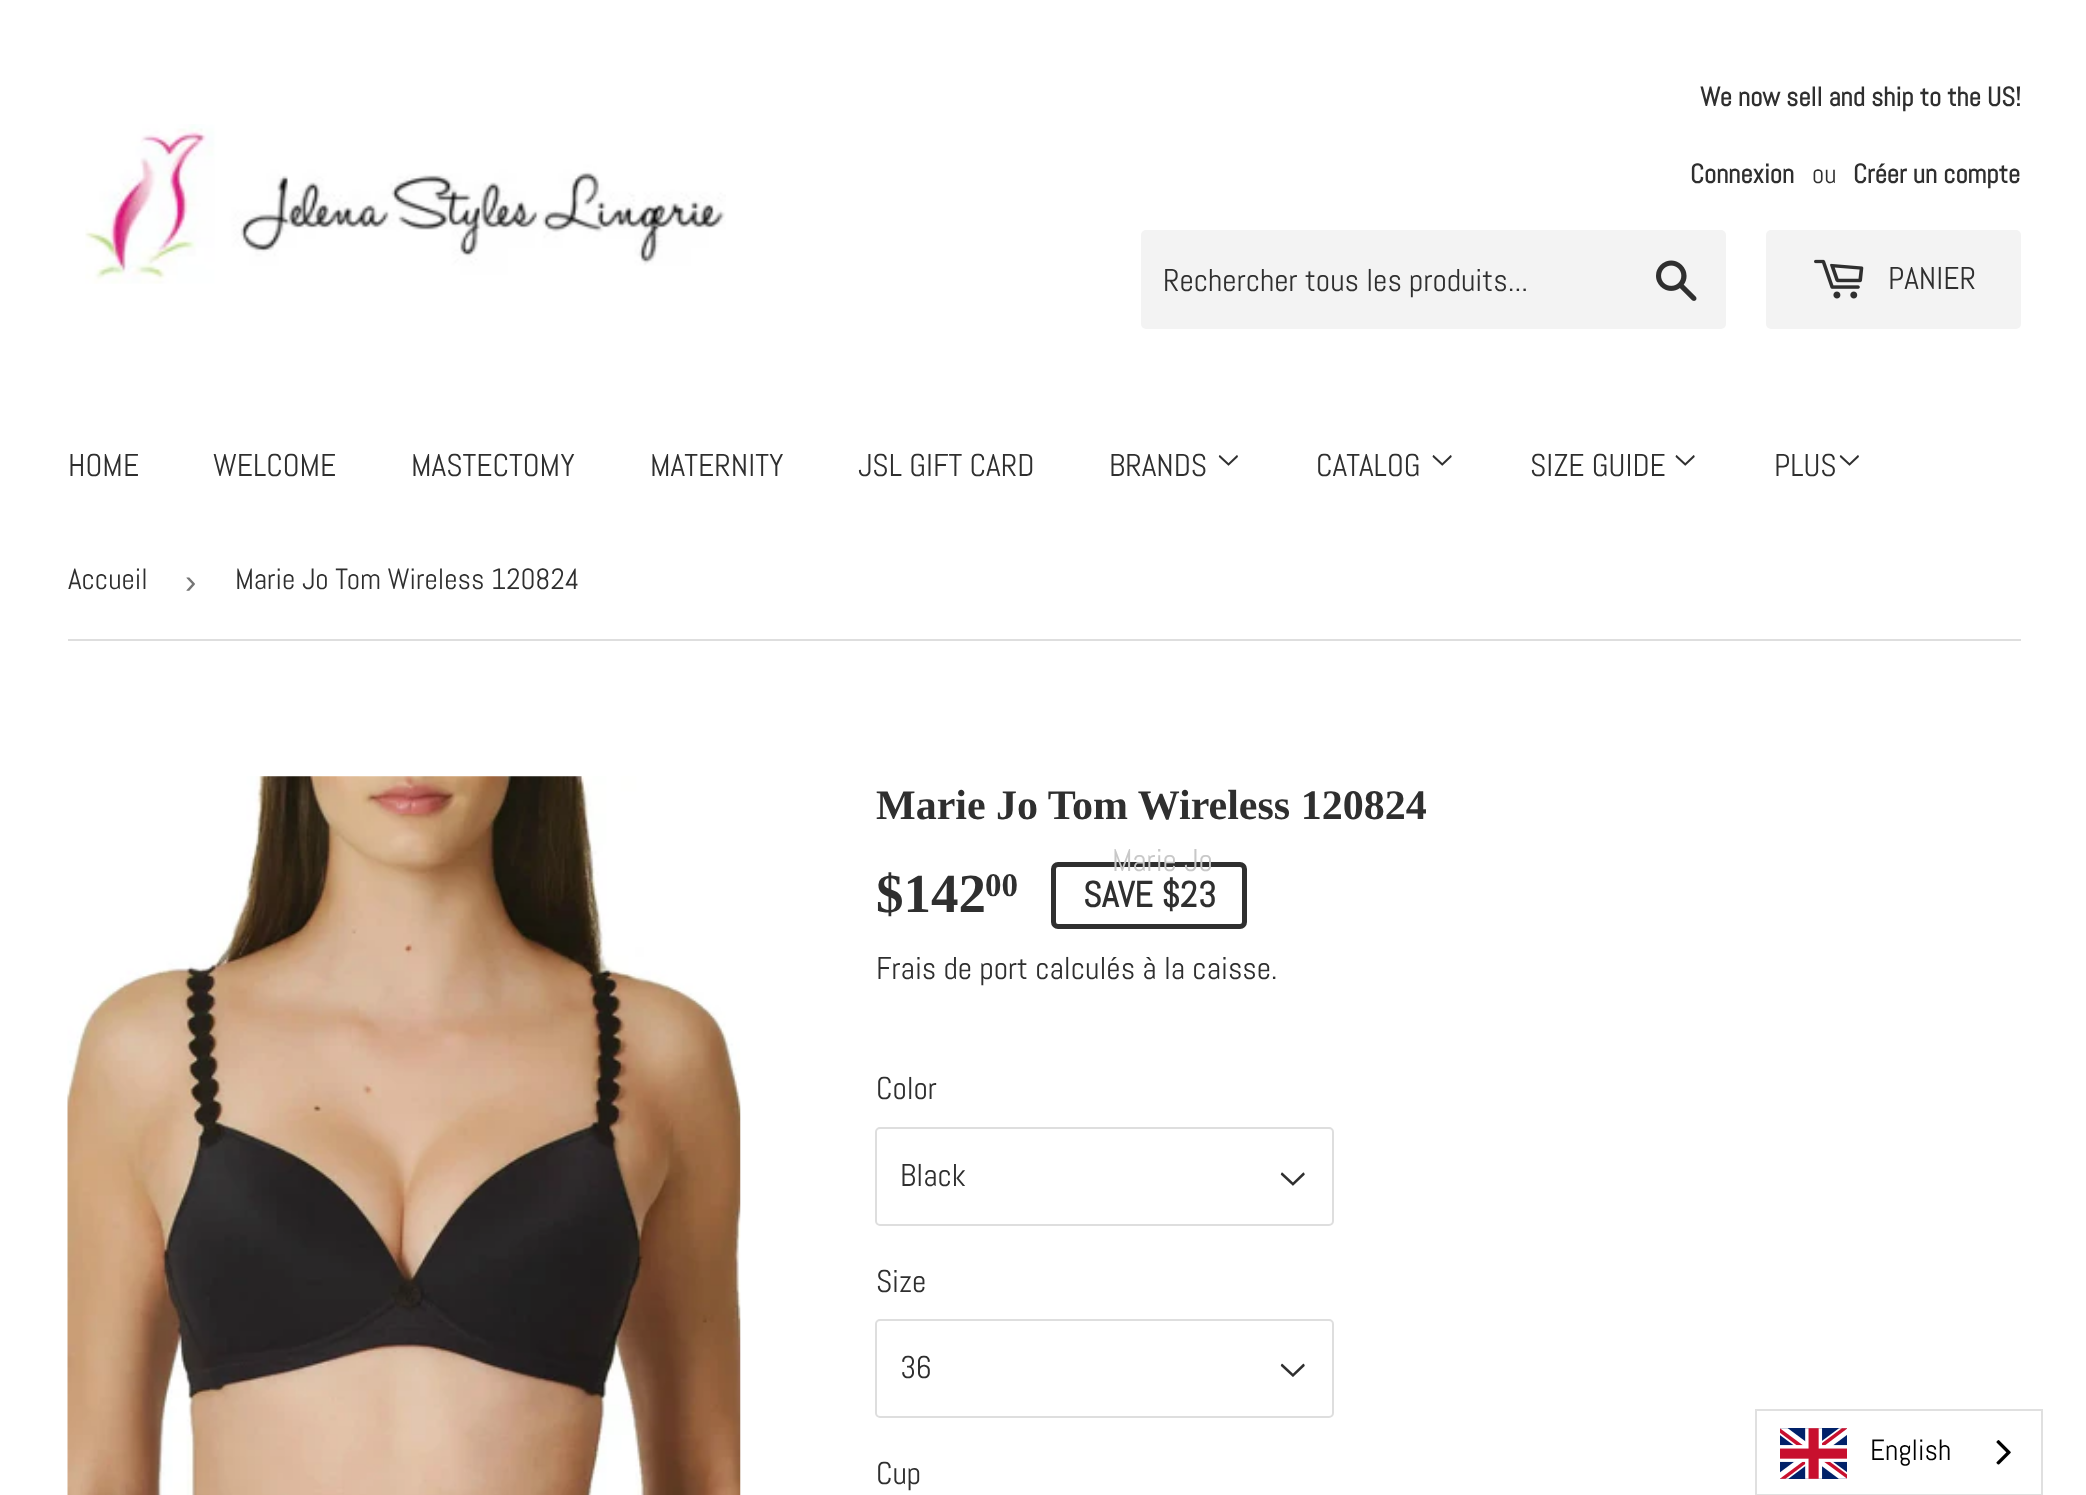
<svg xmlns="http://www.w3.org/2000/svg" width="2086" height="1495">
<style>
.a{font:bold 26.75px Abel;fill:#2f2f2f}
.b{font:26.75px Abel;fill:#2f2f2f}
.c{font:31.5px Abel;fill:#2f2f2f}
.d{font:31.5px Abel;fill:#c8c8c8}
.e{font:29.25px Abel;fill:#2f2f2f}
.f{font:34px Liberation Sans;fill:#767676}
.g{font:bold 42px Liberation Serif;fill:#2f2f2f}
.h{font:bold 55px Liberation Serif;fill:#2f2f2f}
.i{font:bold 33px Liberation Serif;fill:#2f2f2f}
.j{font:bold 36px Abel;fill:#2f2f2f}
.k{font:29.25px Abel;fill:#000}
</style>
<rect width="100%" height="100%" fill="#fff"/>
<image href="1.png" x="85" y="124" width="641" height="160"/>
<rect fill="#f3f3f3" x="1141" y="230" width="585" height="99" rx="5"/>
<image href="2.png" x="1656" y="260" width="41" height="41"/>
<rect fill="#f3f3f3" x="1766" y="230" width="255" height="99" rx="5"/>
<image href="3.png" x="1814" y="259" width="50" height="40"/>
<image href="4.png" x="1218" y="455" width="20" height="11"/>
<image href="5.png" x="1432" y="455" width="20" height="11"/>
<image href="5.png" x="1675" y="455" width="20" height="11"/>
<image href="4.png" x="1839" y="455" width="20" height="11"/>
<path fill="#dedede" d="M68 639h1953v2H68z"/>
<image href="6.png" x="67" y="776" width="674" height="719"/>
<rect fill="none" stroke="#2f2f2f" stroke-width="5" x="1053.5" y="864.5" width="191" height="62" rx="4.5"/>
<image href="7.png" x="1280" y="1172" width="25" height="14"/>
<rect fill="none" stroke="#dedede" stroke-width="2" x="876" y="1128" width="457" height="97" rx="4"/>
<image href="8.png" x="1280" y="1363" width="25" height="14"/>
<rect fill="none" stroke="#dedede" stroke-width="2" x="876" y="1320" width="457" height="97" rx="4"/>
<path fill="none" stroke="#e0e0e0" stroke-width="2" d="M1756 1410h286v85H1756z"/>
<image href="9.png" x="1780" y="1428" width="67" height="51"/>
<image href="10.png" x="1996" y="1440" width="15" height="25"/>
<text class="a" x="1700" y="106">We now sell and ship to the US!</text>
<text class="a" x="1690" y="183">Connexion</text>
<text class="b" x="1812" y="183">ou</text>
<text class="a" x="1853" y="183">Créer un compte</text>
<text class="c" x="1163" y="291">Rechercher tous les produits...</text>
<text class="c" x="1888" y="289">PANIER</text>
<text class="c" x="68" y="476">HOME</text>
<text class="c" x="213" y="476">WELCOME</text>
<text class="c" x="411" y="476">MASTECTOMY</text>
<text class="c" x="650" y="476">MATERNITY</text>
<text class="c" x="858" y="476">JSL GIFT CARD</text>
<text class="c" x="1109" y="476">BRANDS</text>
<text class="d" x="1112" y="871">Marie Jo</text>
<text class="c" x="1316" y="476">CATALOG</text>
<text class="c" x="1530" y="476">SIZE GUIDE</text>
<text class="c" x="1774" y="476">PLUS</text>
<text class="e" x="68" y="589">Accueil</text>
<text class="f" x="185" y="593">›</text>
<text class="e" x="235" y="589">Marie Jo Tom Wireless 120824</text>
<text class="g" x="876" y="819">Marie Jo Tom Wireless 120824</text>
<text class="h" x="876" y="912">$142</text>
<text class="i" x="985" y="896">00</text>
<text class="j" x="1083" y="907">SAVE $23</text>
<text class="c" x="876" y="979">Frais de port calculés à la caisse.</text>
<text class="c" x="876" y="1099">Color</text>
<text class="c" x="900" y="1186">Black</text>
<text class="c" x="876" y="1292">Size</text>
<text class="c" x="900" y="1378">36</text>
<text class="c" x="876" y="1484">Cup</text>
<text class="k" x="1870" y="1460">English</text>
</svg>
